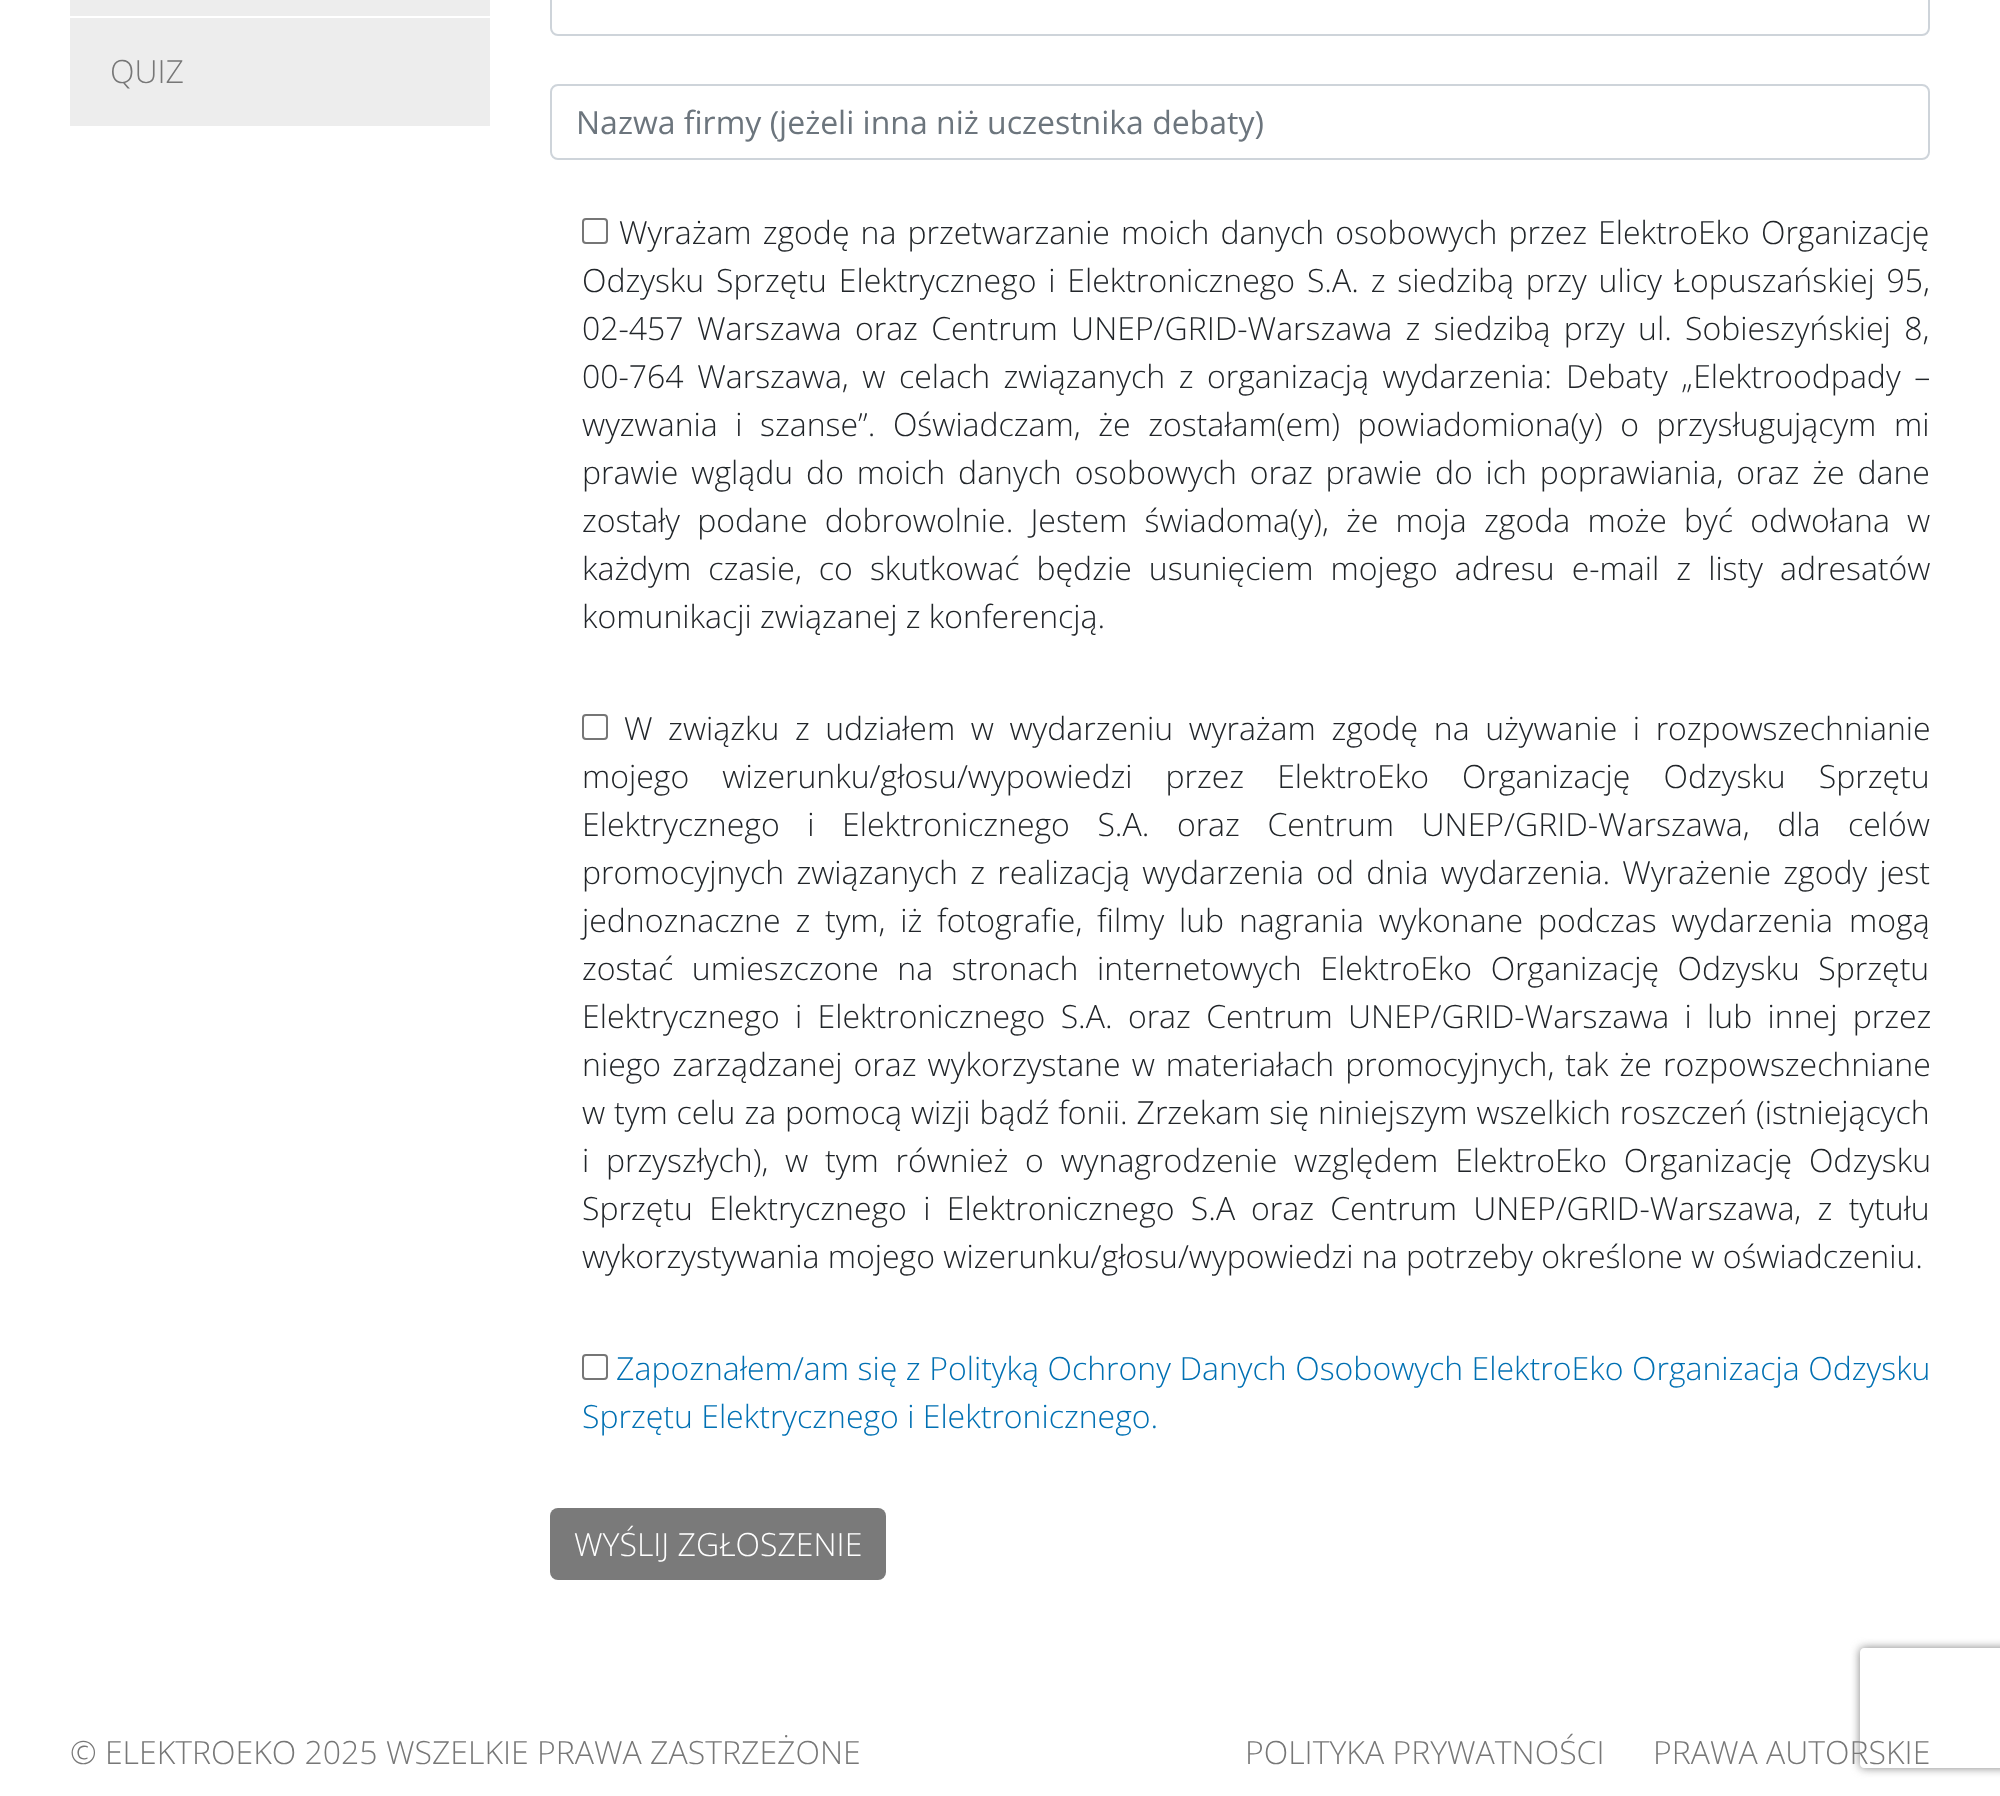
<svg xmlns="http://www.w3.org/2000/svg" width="2000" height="1796">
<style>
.a{font:300 32px Open Sans;fill:#777}
.b{font:32px Open Sans;fill:#6c757d}
.c{font:300 32px Open Sans;fill:#212529}
.d{font:300 32px Open Sans;fill:#0070b3}
.e{font:300 32px Open Sans;fill:#fff}
</style>
<defs>
<clipPath id="clip1"><path d="M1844 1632h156v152h-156zm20 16h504c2 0 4 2 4 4v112c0 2-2 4-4 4h-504c-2 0-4-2-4-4v-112c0-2 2-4 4-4z" clip-rule="evenodd"/></clipPath>
</defs>
<rect width="100%" height="100%" fill="#fff"/>
<path fill="#ededed" d="M70 0h420v16H70z"/>
<path fill="#ededed" d="M70 18h420v108H70z"/>
<rect fill="none" stroke="#ced4da" stroke-width="2" x="551" y="-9" width="1378" height="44" rx="7"/>
<rect fill="none" stroke="#ced4da" stroke-width="2" x="551" y="85" width="1378" height="74" rx="7"/>
<rect fill="none" stroke="#767676" stroke-width="2" x="583" y="219" width="24" height="24" rx="3"/>
<rect fill="none" stroke="#767676" stroke-width="2" x="583" y="715" width="24" height="24" rx="3"/>
<rect fill="none" stroke="#767676" stroke-width="2" x="583" y="1355" width="24" height="24" rx="3"/>
<rect fill="#7a7a7a" x="550" y="1508" width="336" height="72" rx="8"/>
<g clip-path="url(#clip1)">
<rect fill="#808080" filter="blur(5px)" x="1860" y="1648" width="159" height="120" rx="4"/>
</g>
<text class="a" x="110" y="83">QUIZ</text>
<text class="b" x="576" y="134">Nazwa firmy (jeżeli inna niż uczestnika debaty)</text>
<text class="c" x="619" y="244" word-spacing="2.75">Wyrażam zgodę na przetwarzanie moich danych osobowych przez ElektroEko Organizację</text>
<text class="c" x="582" y="292" word-spacing="3.5">Odzysku Sprzętu Elektrycznego i Elektronicznego S.A. z siedzibą przy ulicy Łopuszańskiej 95,</text>
<text class="c" x="582" y="340" word-spacing="5">02-457 Warszawa oraz Centrum UNEP/GRID-Warszawa z siedzibą przy ul. Sobieszyńskiej 8,</text>
<text class="c" x="582" y="388" word-spacing="5.25">00-764 Warszawa, w celach związanych z organizacją wydarzenia:</text>
<text class="c" x="1566" y="388" word-spacing="5.25">Debaty „Elektroodpady –</text>
<text class="c" x="582" y="436" word-spacing="9.25">wyzwania i szanse”. Oświadczam, że zostałam(em) powiadomiona(y) o przysługującym mi</text>
<text class="c" x="582" y="484" word-spacing="4.6">prawie wglądu do moich danych osobowych oraz prawie do ich poprawiania, oraz że dane</text>
<text class="c" x="582" y="532" word-spacing="8.9">zostały podane dobrowolnie. Jestem świadoma(y), że moja zgoda może być odwołana w</text>
<text class="c" x="582" y="580" word-spacing="8.75">każdym czasie, co skutkować będzie usunięciem mojego adresu e-mail z listy adresatów</text>
<text class="c" x="582" y="628">komunikacji związanej z konferencją.</text>
<text class="c" x="624" y="740" word-spacing="7.25">W związku z udziałem w wydarzeniu wyrażam zgodę na używanie i rozpowszechnianie</text>
<text class="c" x="582" y="788" word-spacing="24.75">mojego wizerunku/głosu/wypowiedzi przez ElektroEko Organizację Odzysku Sprzętu</text>
<text class="c" x="582" y="836" word-spacing="19.25">Elektrycznego i Elektronicznego S.A. oraz Centrum UNEP/GRID-Warszawa, dla celów</text>
<text class="c" x="582" y="884" word-spacing="4">promocyjnych związanych z realizacją wydarzenia od dnia wydarzenia. Wyrażenie zgody jest</text>
<text class="c" x="582" y="932" word-spacing="6.5">jednoznaczne z tym, iż fotografie, filmy lub nagrania wykonane podczas wydarzenia</text>
<text class="c" x="1849" y="932">mogą</text>
<text class="c" x="582" y="980" word-spacing="10.25">zostać umieszczone na stronach internetowych ElektroEko Organizację Odzysku Sprzętu</text>
<text class="c" x="582" y="1028" word-spacing="7">Elektrycznego i Elektronicznego S.A. oraz Centrum UNEP/GRID-Warszawa i lub innej przez</text>
<text class="c" x="582" y="1076" word-spacing="2.75">niego zarządzanej oraz wykorzystane w materiałach promocyjnych, tak że rozpowszechniane</text>
<text class="c" x="582" y="1124" word-spacing="0.6">w tym celu za pomocą wizji bądź fonii. Zrzekam się niniejszym wszelkich roszczeń (istniejących</text>
<text class="c" x="582" y="1172" word-spacing="8.5">i przyszłych), w tym również o wynagrodzenie względem ElektroEko Organizację Odzysku</text>
<text class="c" x="582" y="1220" word-spacing="8">Sprzętu Elektrycznego i Elektronicznego S.A</text>
<text class="c" x="1251" y="1220" word-spacing="8">oraz Centrum UNEP/GRID-Warszawa, z tytułu</text>
<text class="c" x="582" y="1268">wykorzystywania mojego wizerunku/głosu/wypowiedzi na potrzeby określone w oświadczeniu.</text>
<text class="d" x="616" y="1380" word-spacing="0.25">Zapoznałem/am się z Polityką Ochrony Danych Osobowych ElektroEko Organizacja Odzysku</text>
<text class="d" x="582" y="1428">Sprzętu Elektrycznego i Elektronicznego.</text>
<text class="e" x="574" y="1556">WYŚLIJ ZGŁOSZENIE</text>
<text class="a" x="70" y="1764">© ELEKTROEKO 2025 WSZELKIE PRAWA ZASTRZEŻONE</text>
<text class="a" x="1245" y="1764">POLITYKA PRYWATNOŚCI</text>
<text class="a" x="1653" y="1764">PRAWA AUTORSKIE</text>
</svg>
